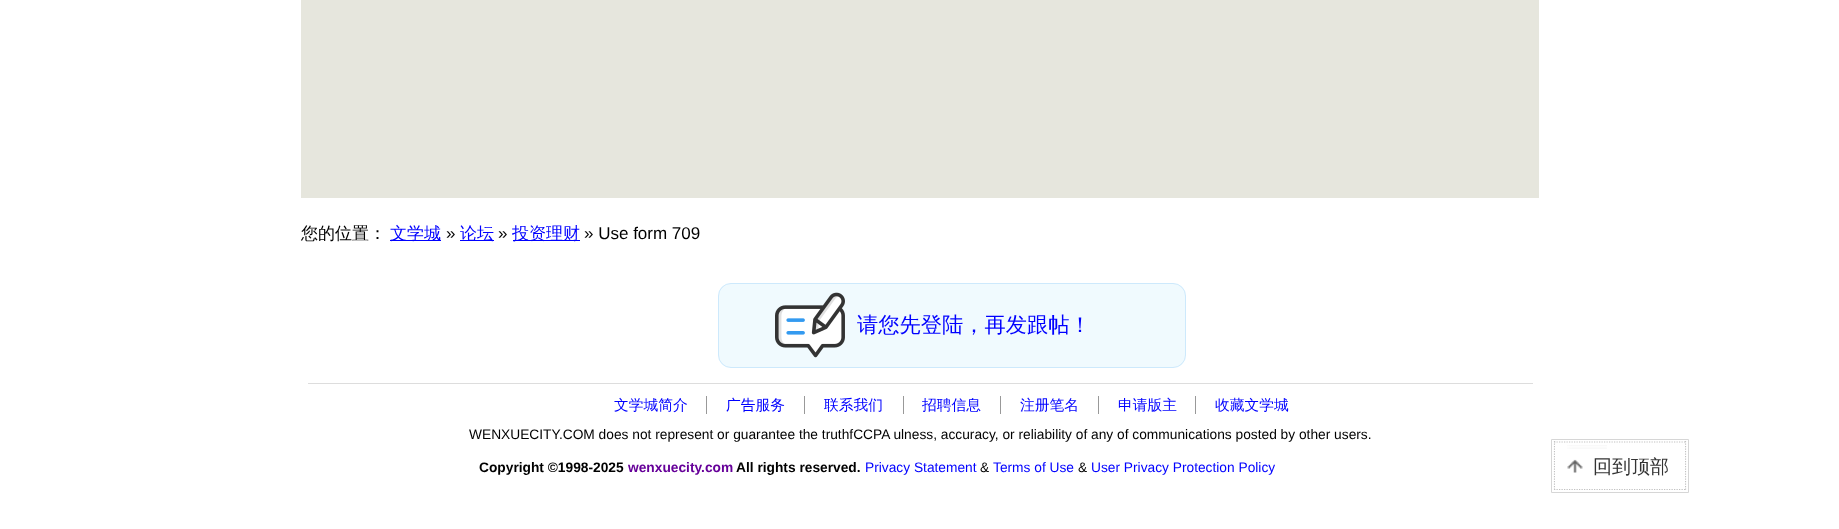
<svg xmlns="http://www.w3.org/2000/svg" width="1839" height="529">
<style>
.a{font:500 17px WenQuanYi Zen Hei;fill:#000}
.b{font:500 17px WenQuanYi Zen Hei;fill:#00f}
.c{font:17px Liberation Sans;fill:#000}
.d{font:500 21.25px WenQuanYi Zen Hei;fill:#00f}
.e{font:500 14.75px WenQuanYi Zen Hei;fill:#00f}
.f{font:13.75px Liberation Sans;fill:#000}
.g{font:bold 13.75px Liberation Sans;fill:#000}
.h{font:bold 13.75px Liberation Sans;fill:#609}
.i{font:13.75px Liberation Sans;fill:#00f}
.j{font:500 19px WenQuanYi Zen Hei;fill:#333}
</style>
<rect width="100%" height="100%" fill="#fff"/>
<path fill="#e6e6dd" d="M301 0h1238v198H301z"/>
<path fill="#00f" d="M390 240h51v1H390z"/>
<path fill="#00f" d="M460 240h34v1H460z"/>
<path fill="#00f" d="M513 240h67v1H513z"/>
<rect fill="#f0fafe" x="718" y="283" width="468" height="85" rx="13"/>
<rect fill="none" stroke="#2196f32b" x="718.5" y="283.5" width="467" height="84" rx="12.5"/>
<image href="1.png" x="775" y="292" width="70" height="66"/>
<path fill="#ddd" d="M308 383h1225v1H308z"/>
<path fill="#999" d="M706 396h1v18H706z"/>
<path fill="#999" d="M804 396h1v18H804z"/>
<path fill="#999" d="M903 396h1v18H903z"/>
<path fill="#999" d="M1000 396h1v18H1000z"/>
<path fill="#999" d="M1098 396h1v18H1098z"/>
<path fill="#999" d="M1195 396h1v18H1195z"/>
<path fill="none" stroke="#d6d6d6" d="M1551.5 439.5h137v53H1551.5z"/>
<path fill="none" stroke="#c1c1c1" stroke-width="1.2" stroke-dasharray="1.25 1.25" d="M1554 442h132"/>
<path fill="none" stroke="#c1c1c1" stroke-width="1.2" stroke-dasharray="1.25 1.25" d="M1685.5 441v49"/>
<path fill="none" stroke="#c1c1c1" stroke-width="1.2" stroke-dasharray="1.25 1.25" d="M1554 489.5h132"/>
<path fill="none" stroke="#c1c1c1" stroke-width="1.2" stroke-dasharray="1.25 1.25" d="M1554.5 441v49"/>
<path fill="#fff" d="M1555 444h130v45H1555z"/>
<image href="2.png" x="1567" y="445" width="40" height="28"/>
<text class="a" x="301" y="239">您的位置：</text>
<text class="b" x="390" y="239">文学城</text>
<text class="c" x="446" y="239">»</text>
<text class="b" x="460" y="239">论坛</text>
<text class="c" x="498" y="239">»</text>
<text class="b" x="512" y="239">投资理财</text>
<text class="c" x="584" y="239">» Use form 709</text>
<text class="d" x="857" y="332">请您先登陆，再发跟帖！</text>
<text class="e" x="614" y="410">文学城简介</text>
<text class="e" x="726" y="410">广告服务</text>
<text class="e" x="824" y="410">联系我们</text>
<text class="e" x="922" y="410">招聘信息</text>
<text class="e" x="1020" y="410">注册笔名</text>
<text class="e" x="1118" y="410">申请版主</text>
<text class="e" x="1215" y="410">收藏文学城</text>
<text class="f" x="469" y="439">WENXUECITY.COM does not represent or guarantee the truthfCCPA ulness, accuracy, or reliability of any of communications posted by other users.</text>
<text class="g" x="479" y="472">Copyright ©1998-2025</text>
<text class="h" x="628" y="472">wenxuecity.com</text>
<text class="g" x="736" y="472">All rights reserved.</text>
<text class="i" x="865" y="472">Privacy Statement</text>
<text class="f" x="980" y="472">&amp;</text>
<text class="i" x="993" y="472">Terms of Use</text>
<text class="f" x="1078" y="472">&amp;</text>
<text class="i" x="1091" y="472">User Privacy Protection Policy</text>
<text class="j" x="1593" y="473">回到顶部</text>
</svg>
